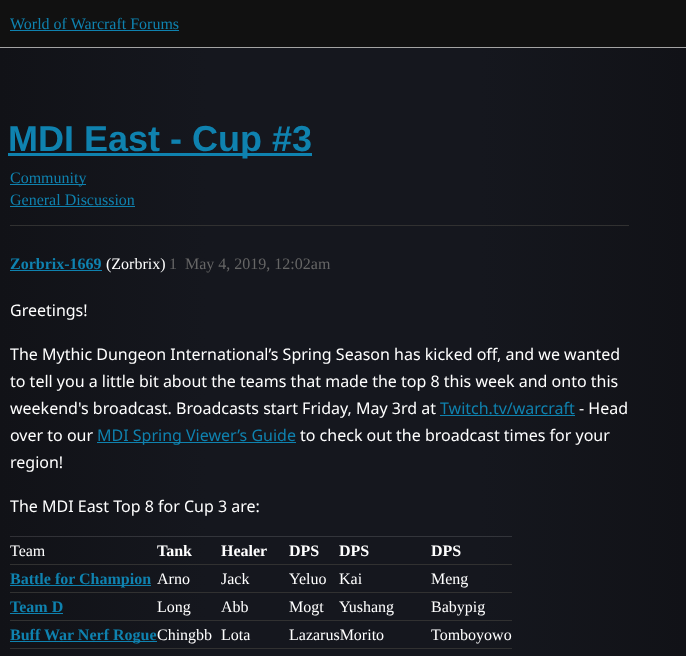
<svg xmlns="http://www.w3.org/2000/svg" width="686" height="656">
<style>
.a{font:16px Liberation Serif;fill:#0f82af}
.b{font:bold 36px Liberation Sans;fill:#0f82af}
.c{font:bold 16px Liberation Serif;fill:#0f82af}
.d{font:16px Liberation Serif;fill:#fff}
.e{font:16px Liberation Serif;fill:#666}
.f{font:16px Noto Sans;fill:#fff}
.g{font:16px Noto Sans;fill:#0f82af}
.h{font:bold 16px Liberation Serif;fill:#fff}
</style>
<defs>
<linearGradient id="g1" gradientUnits="userSpaceOnUse" x1="0" y1="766" x2="686" y2="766"><stop offset="0" stop-color="#111217"/><stop offset="0.3" stop-color="#15171e"/><stop offset="0.7" stop-color="#15171e"/><stop offset="1" stop-color="#111217"/></linearGradient>
<linearGradient id="g2" gradientUnits="userSpaceOnUse" x1="0" y1="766" x2="686" y2="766"><stop offset="0" stop-color="#303035"/><stop offset="0.3" stop-color="#33353b"/><stop offset="0.7" stop-color="#33353b"/><stop offset="1" stop-color="#303035"/></linearGradient>
</defs>
<rect width="100%" height="100%" fill="#fff"/>
<path fill="url(#g1)" d="M0 48h686v608H0z"/>
<path fill="url(#g2)" d="M10 536h502v1H10z"/>
<path fill="#111" d="M0 0h686v47H0z"/>
<path fill="#a4a4a4" d="M0 47h686v1H0z"/>
<path fill="#0f82af" d="M10 30h169v1H10z"/>
<path fill="#0f82af" d="M8 153h304v3H8z"/>
<path fill="#0f82af" d="M10 184h76v1H10z"/>
<path fill="#0f82af" d="M10 206h125v1H10z"/>
<path fill="#313131" d="M10 225h619v1H10z"/>
<path fill="#0f82af" d="M10 270h92v1H10z"/>
<path fill="#0f82af" d="M440 415h135v1H440z"/>
<path fill="#0f82af" d="M97 442h199v1H97z"/>
<path fill="#313131" d="M10 564h502v1H10z"/>
<path fill="#313131" d="M10 592h502v1H10z"/>
<path fill="#0f82af" d="M10 585h141v1H10z"/>
<path fill="#313131" d="M10 620h502v1H10z"/>
<path fill="#0f82af" d="M10 613h53v1H10z"/>
<path fill="#313131" d="M10 648h502v1H10z"/>
<path fill="#0f82af" d="M10 641h147v1H10z"/>
<text class="a" x="10" y="29">World of Warcraft Forums</text>
<text class="b" x="8" y="151">MDI East - Cup #3</text>
<text class="a" x="10" y="183">Community</text>
<text class="a" x="10" y="205">General Discussion</text>
<text class="c" x="10" y="269">Zorbrix-1669</text>
<text class="d" x="106" y="269">(Zorbrix)</text>
<text class="e" x="169" y="269">1</text>
<text class="e" x="185" y="269">May 4, 2019, 12:02am</text>
<text class="f" x="10" y="316">Greetings!</text>
<text class="f" x="10" y="360">The Mythic Dungeon International’s Spring Season has kicked off, and we wanted</text>
<text class="f" x="10" y="387">to tell you a little bit about the teams that made the top 8 this week and onto this</text>
<text class="f" x="10" y="414">weekend's broadcast. Broadcasts start Friday, May 3rd at</text>
<text class="g" x="440" y="414">Twitch.tv/warcraft</text>
<text class="f" x="579" y="414">- Head</text>
<text class="f" x="10" y="441">over to our</text>
<text class="g" x="97" y="441">MDI Spring Viewer’s Guide</text>
<text class="f" x="300" y="441">to check out the broadcast times for your</text>
<text class="f" x="10" y="468">region!</text>
<text class="f" x="10" y="512">The MDI East Top 8 for Cup 3 are:</text>
<text class="d" x="10" y="556">Team</text>
<text class="h" x="157" y="556">Tank</text>
<text class="h" x="221" y="556">Healer</text>
<text class="h" x="289" y="556">DPS</text>
<text class="h" x="339" y="556">DPS</text>
<text class="h" x="431" y="556">DPS</text>
<text class="c" x="10" y="584">Battle for Champion</text>
<text class="d" x="157" y="584">Arno</text>
<text class="d" x="221" y="584">Jack</text>
<text class="d" x="289" y="584">Yeluo</text>
<text class="d" x="339" y="584">Kai</text>
<text class="d" x="431" y="584">Meng</text>
<text class="c" x="10" y="612">Team D</text>
<text class="d" x="157" y="612">Long</text>
<text class="d" x="221" y="612">Abb</text>
<text class="d" x="289" y="612">Mogt</text>
<text class="d" x="339" y="612">Yushang</text>
<text class="d" x="431" y="612">Babypig</text>
<text class="c" x="10" y="640">Buff War Nerf Rogue</text>
<text class="d" x="157" y="640">Chingbb</text>
<text class="d" x="221" y="640">Lota</text>
<text class="d" x="289" y="640">LazarusMorito</text>
<text class="d" x="431" y="640">Tomboyowo</text>
</svg>
